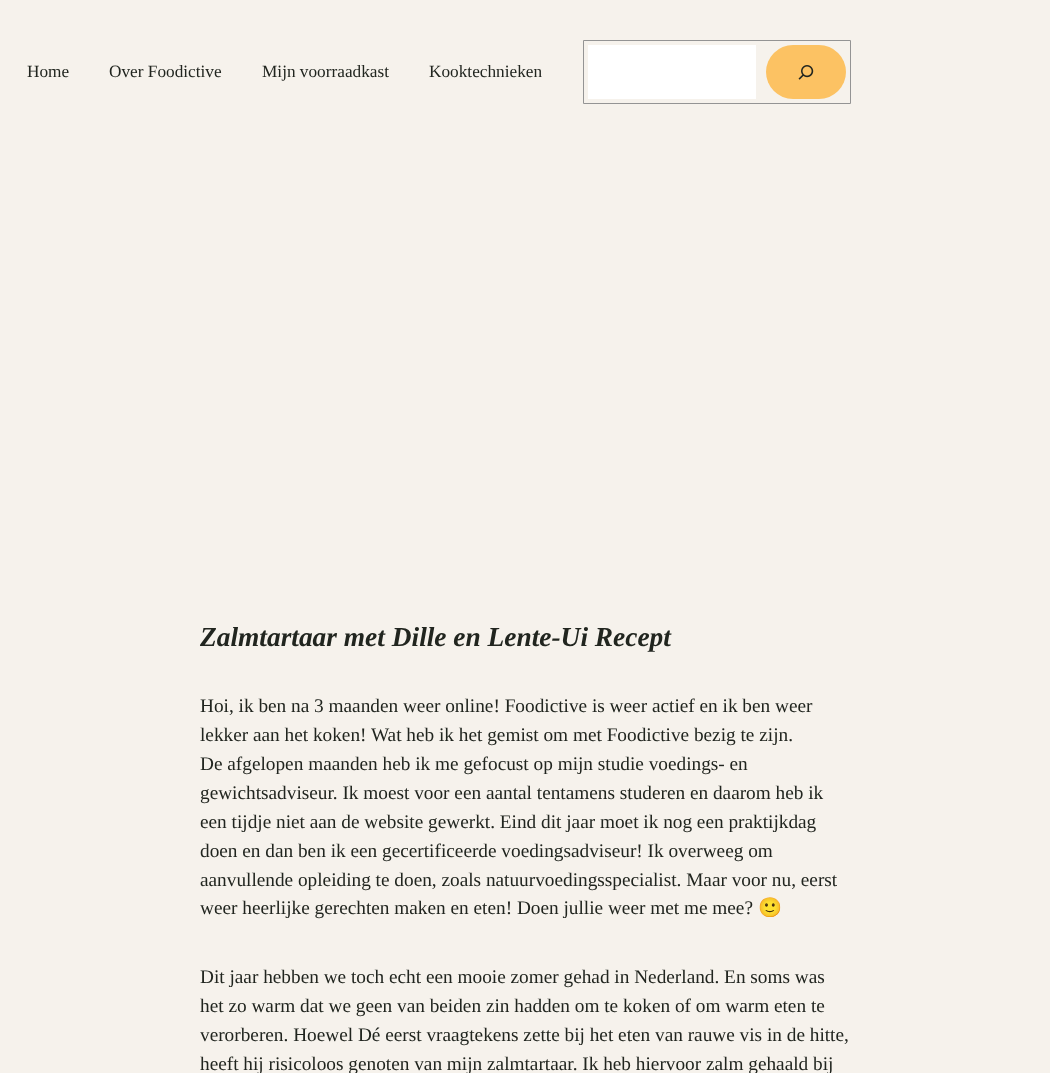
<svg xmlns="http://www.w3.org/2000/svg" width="1050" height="1073">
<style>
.a{font:17.25px Liberation Serif;fill:#21251f}
.b{font:italic bold 27.4px Liberation Serif;fill:#21251f}
.c{font:19.3px Liberation Serif;fill:#21251f}
.d{font:19.3px Noto Color Emoji;fill:#21251f}
</style>
<rect width="100%" height="100%" fill="#f6f2ec"/>
<path fill="none" stroke="#949494" d="M583.5 40.5h267v63H583.5z"/>
<path fill="#fff" d="M588 45h168v54H588z"/>
<rect fill="#fcc263" x="766" y="45" width="80" height="54" rx="27"/>
<image href="1.png" x="798" y="65" width="16" height="15"/>
<text class="a" x="27" y="77">Home</text>
<text class="a" x="109" y="77">Over Foodictive</text>
<text class="a" x="262" y="77">Mijn voorraadkast</text>
<text class="a" x="429" y="77">Kooktechnieken</text>
<text class="b" x="200" y="646">Zalmtartaar met Dille en Lente-Ui Recept</text>
<text class="c" x="200" y="712">Hoi, ik ben na 3 maanden weer online! Foodictive is weer actief en ik ben weer</text>
<text class="c" x="200" y="741">lekker aan het koken! Wat heb ik het gemist om met Foodictive bezig te zijn.</text>
<text class="c" x="200" y="770">De afgelopen maanden heb ik me gefocust op mijn studie voedings- en</text>
<text class="c" x="200" y="799">gewichtsadviseur. Ik moest voor een aantal tentamens studeren en daarom heb ik</text>
<text class="c" x="200" y="828">een tijdje niet aan de website gewerkt. Eind dit jaar moet ik nog een praktijkdag</text>
<text class="c" x="200" y="857">doen en dan ben ik een gecertificeerde voedingsadviseur! Ik overweeg om</text>
<text class="c" x="200" y="886">aanvullende opleiding te doen, zoals natuurvoedingsspecialist. Maar voor nu, eerst</text>
<text class="c" x="200" y="914">weer heerlijke gerechten maken en eten! Doen jullie weer met me mee?</text>
<text class="d" x="758" y="914">🙂</text>
<text class="c" x="200" y="983">Dit jaar hebben we toch echt een mooie zomer gehad in Nederland. En soms was</text>
<text class="c" x="200" y="1012">het zo warm dat we geen van beiden zin hadden om te koken of om warm eten te</text>
<text class="c" x="200" y="1041">verorberen. Hoewel Dé eerst vraagtekens zette bij het eten van rauwe vis in de hitte,</text>
<text class="c" x="200" y="1070">heeft hij risicoloos genoten van mijn zalmtartaar. Ik heb hiervoor zalm gehaald bij</text>
</svg>
